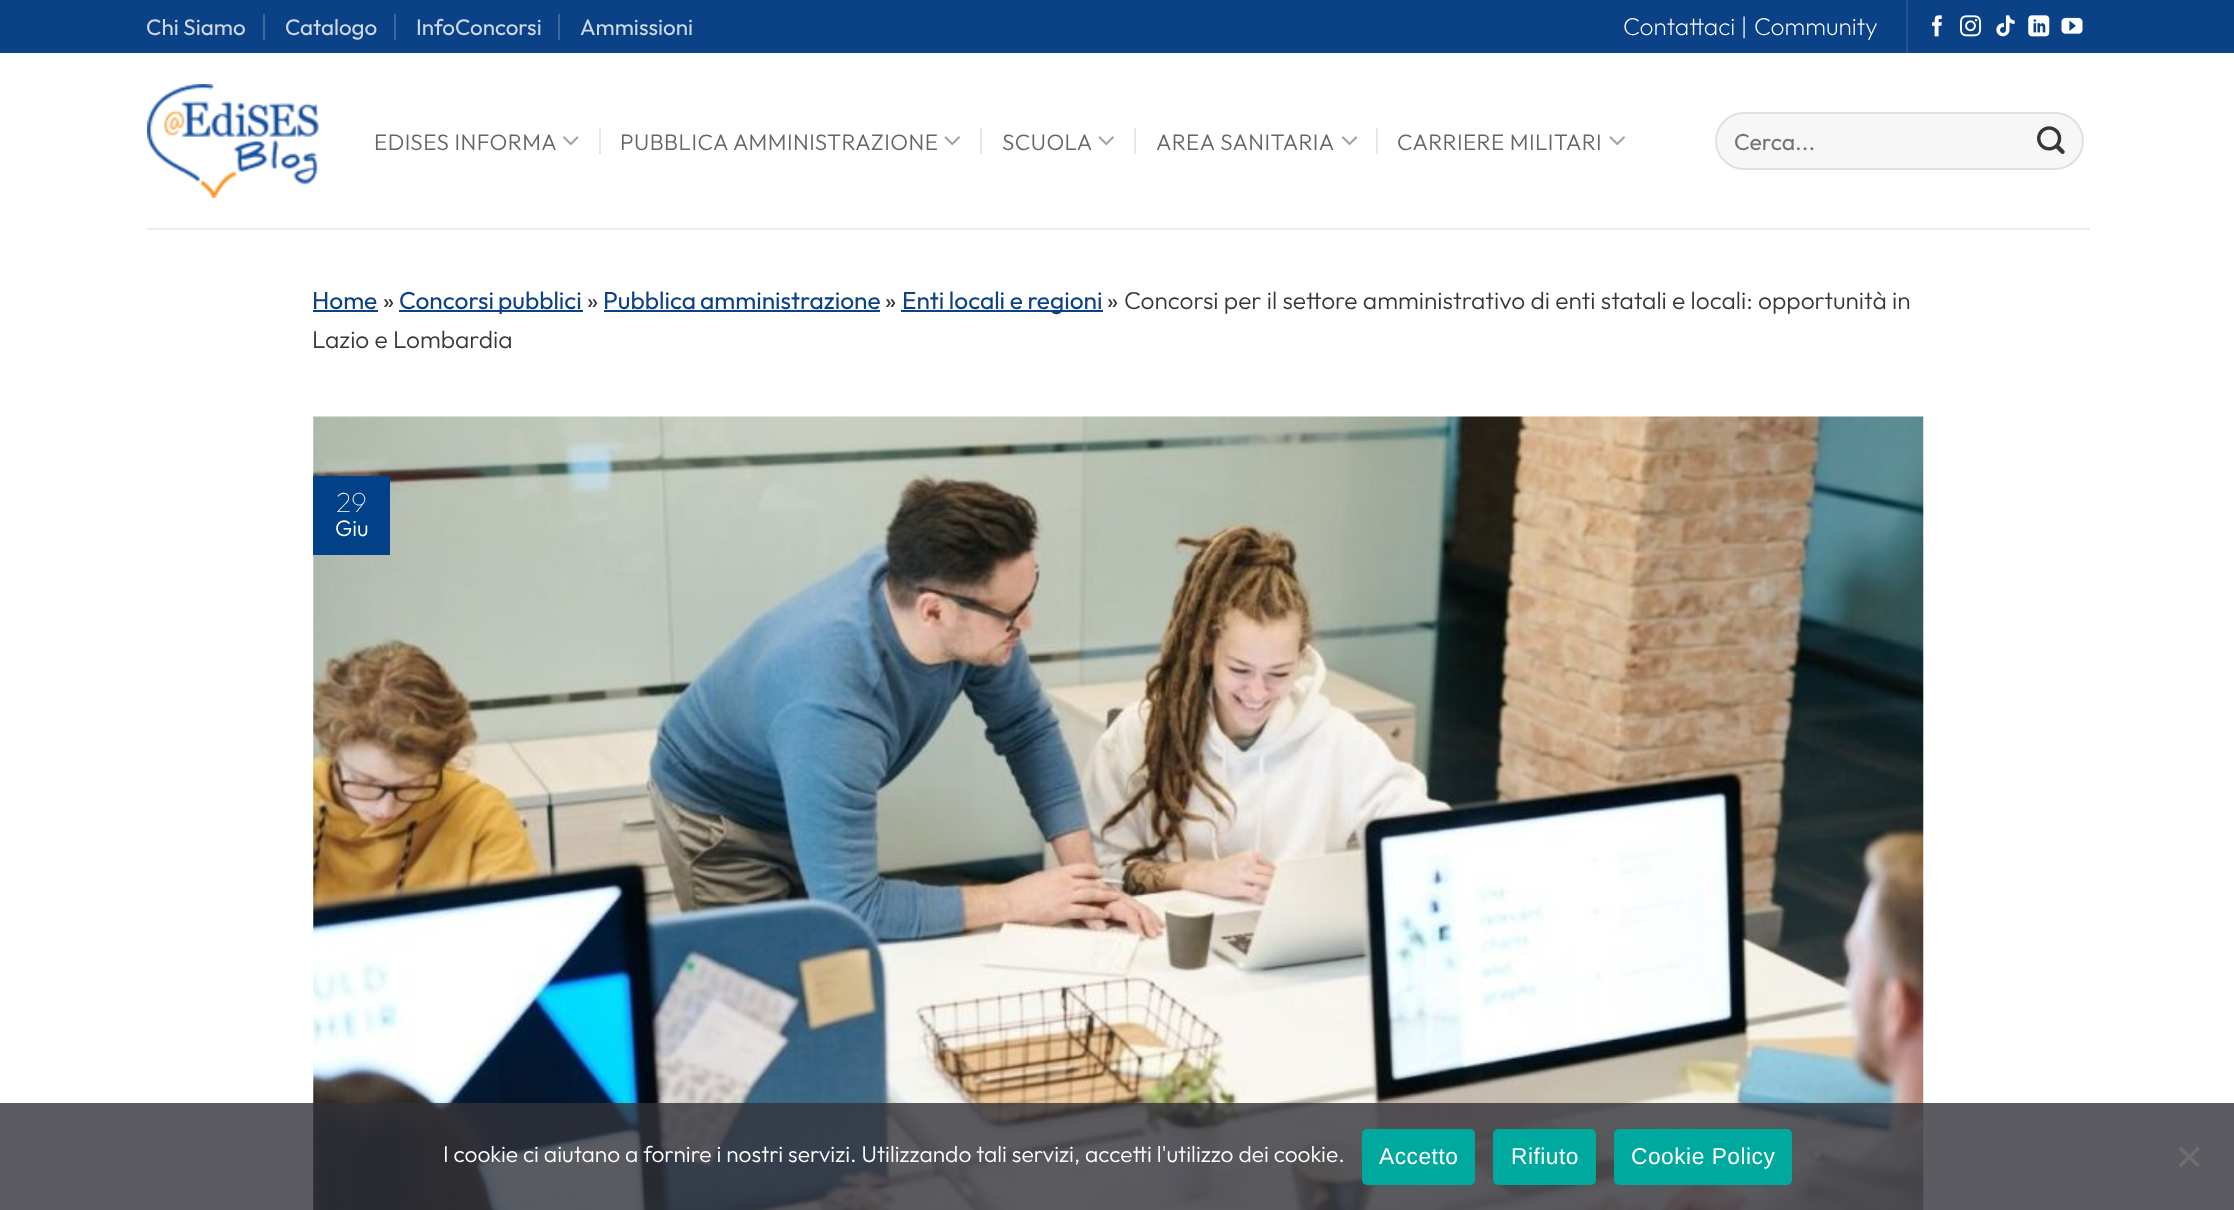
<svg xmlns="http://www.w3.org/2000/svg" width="2234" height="1210">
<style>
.a{font:22.4px Outfit;fill:#ced9e7}
.b{font:200 24.5px Outfit;fill:#fff}
.c{font:300 22.4px Outfit;letter-spacing:0.45px;fill:#656565}
.d{font:23px Outfit;fill:#757575}
.e{font:24.5px Outfit;fill:#0b4187}
.f{font:24.5px Outfit;fill:#363636}
.g{font:300 24.5px Outfit;fill:#363636}
.h{font:100 28px Outfit;fill:#fff}
.i{font:300 22.4px Outfit;fill:#fff}
.j{font:300 22.75px Outfit;fill:#fff}
.k{font:22.75px Liberation Sans;letter-spacing:0.5px;fill:#fff}
</style>
<rect width="100%" height="100%" fill="#fff"/>
<path fill="#0b4187" d="M0 0h2234v53H0z"/>
<path fill="#3c679f" d="M263 14h2v26H263z"/>
<path fill="#3c679f" d="M394 14h2v26H394z"/>
<path fill="#3c679f" d="M558 14h2v26H558z"/>
<path fill="#235493" d="M1906 0h2v53H1906z"/>
<image href="1.png" x="1932" y="15" width="10" height="22"/>
<image href="2.png" x="1960" y="15" width="21" height="22"/>
<image href="3.png" x="1996" y="15" width="19" height="22"/>
<image href="4.png" x="2028" y="15" width="22" height="22"/>
<image href="5.png" x="2061" y="17" width="22" height="17"/>
<image href="6.png" x="147" y="84" width="172" height="114"/>
<image href="7.png" x="563" y="136" width="16" height="10"/>
<path fill="#e6e6e6" d="M599 128h2v26H599z"/>
<image href="8.png" x="944" y="136" width="16" height="10"/>
<path fill="#e6e6e6" d="M980 128h2v26H980z"/>
<image href="8.png" x="1098" y="136" width="16" height="10"/>
<path fill="#e6e6e6" d="M1134 128h2v26H1134z"/>
<image href="9.png" x="1341" y="136" width="17" height="10"/>
<path fill="#e6e6e6" d="M1376 128h2v26H1376z"/>
<image href="8.png" x="1609" y="136" width="16" height="10"/>
<rect fill="#f7f7f7" x="1715" y="112" width="369" height="58" rx="29"/>
<rect fill="none" stroke="#00000017" stroke-width="2" x="1716" y="113" width="367" height="56" rx="28"/>
<image href="10.png" x="2037" y="126" width="28" height="28"/>
<path fill="#ebebeb" d="M147 228h1943v2H147z"/>
<path fill="#0b4187" d="M313 310h65v2H313z"/>
<path fill="#0b4187" d="M399 310h184v2H399z"/>
<path fill="#0b4187" d="M604 310h276v2H604z"/>
<path fill="#0b4187" d="M901 310h202v2H901z"/>
<image href="11.png" x="313" y="416" width="1611" height="794"/>
<path fill="#004187" d="M313 476h77v79H313z"/>
<path fill="#32323acc" d="M0 1103h2234v107H0z"/>
<rect fill="#00a99d" x="1362" y="1129" width="113" height="56" rx="5"/>
<rect fill="#00a99d" x="1493" y="1129" width="103" height="56" rx="5"/>
<rect fill="#00a99d" x="1614" y="1129" width="178" height="56" rx="5"/>
<path fill="#6e6e71" d="M2197.5 1146.5l2.5 2.5l-19 18.5l-2.5-2.5z"/>
<path fill="#6e6e71" d="M2178.5 1149l2.5-2.5l19 18.5l-2.5 2.5z"/>
<text class="a" x="146" y="35">Chi Siamo</text>
<text class="a" x="285" y="35">Catalogo</text>
<text class="a" x="416" y="35">InfoConcorsi</text>
<text class="a" x="580" y="35">Ammissioni</text>
<text class="b" x="1623" y="35">Contattaci |</text>
<text class="b" x="1754" y="35">Community</text>
<text class="c" x="374" y="150">EDISES INFORMA</text>
<text class="c" x="620" y="150">PUBBLICA AMMINISTRAZIONE</text>
<text class="c" x="1002" y="150">SCUOLA</text>
<text class="c" x="1156" y="150">AREA SANITARIA</text>
<text class="c" x="1397" y="150">CARRIERE MILITARI</text>
<text class="d" x="1734" y="150">Cerca...</text>
<text class="e" x="312" y="309">Home</text>
<text class="f" x="383" y="309">»</text>
<text class="e" x="399" y="309" word-spacing="-1">Concorsi pubblici</text>
<text class="f" x="587" y="309">»</text>
<text class="e" x="603" y="309" word-spacing="-1">Pubblica amministrazione</text>
<text class="f" x="885" y="309">»</text>
<text class="e" x="902" y="309" word-spacing="-0.5">Enti locali e regioni</text>
<text class="f" x="1107" y="309">»</text>
<text class="g" x="1124" y="309">Concorsi per il settore amministrativo di enti statali e locali: opportunità in</text>
<text class="g" x="312" y="348">Lazio e Lombardia</text>
<text class="h" x="336" y="512">29</text>
<text class="i" x="335" y="536">Giu</text>
<text class="j" x="443" y="1162">I cookie ci aiutano a fornire i nostri servizi. Utilizzando tali servizi, accetti l'utilizzo dei cookie.</text>
<text class="k" x="1379" y="1164">Accetto</text>
<text class="k" x="1511" y="1164">Rifiuto</text>
<text class="k" x="1631" y="1164">Cookie Policy</text>
</svg>
